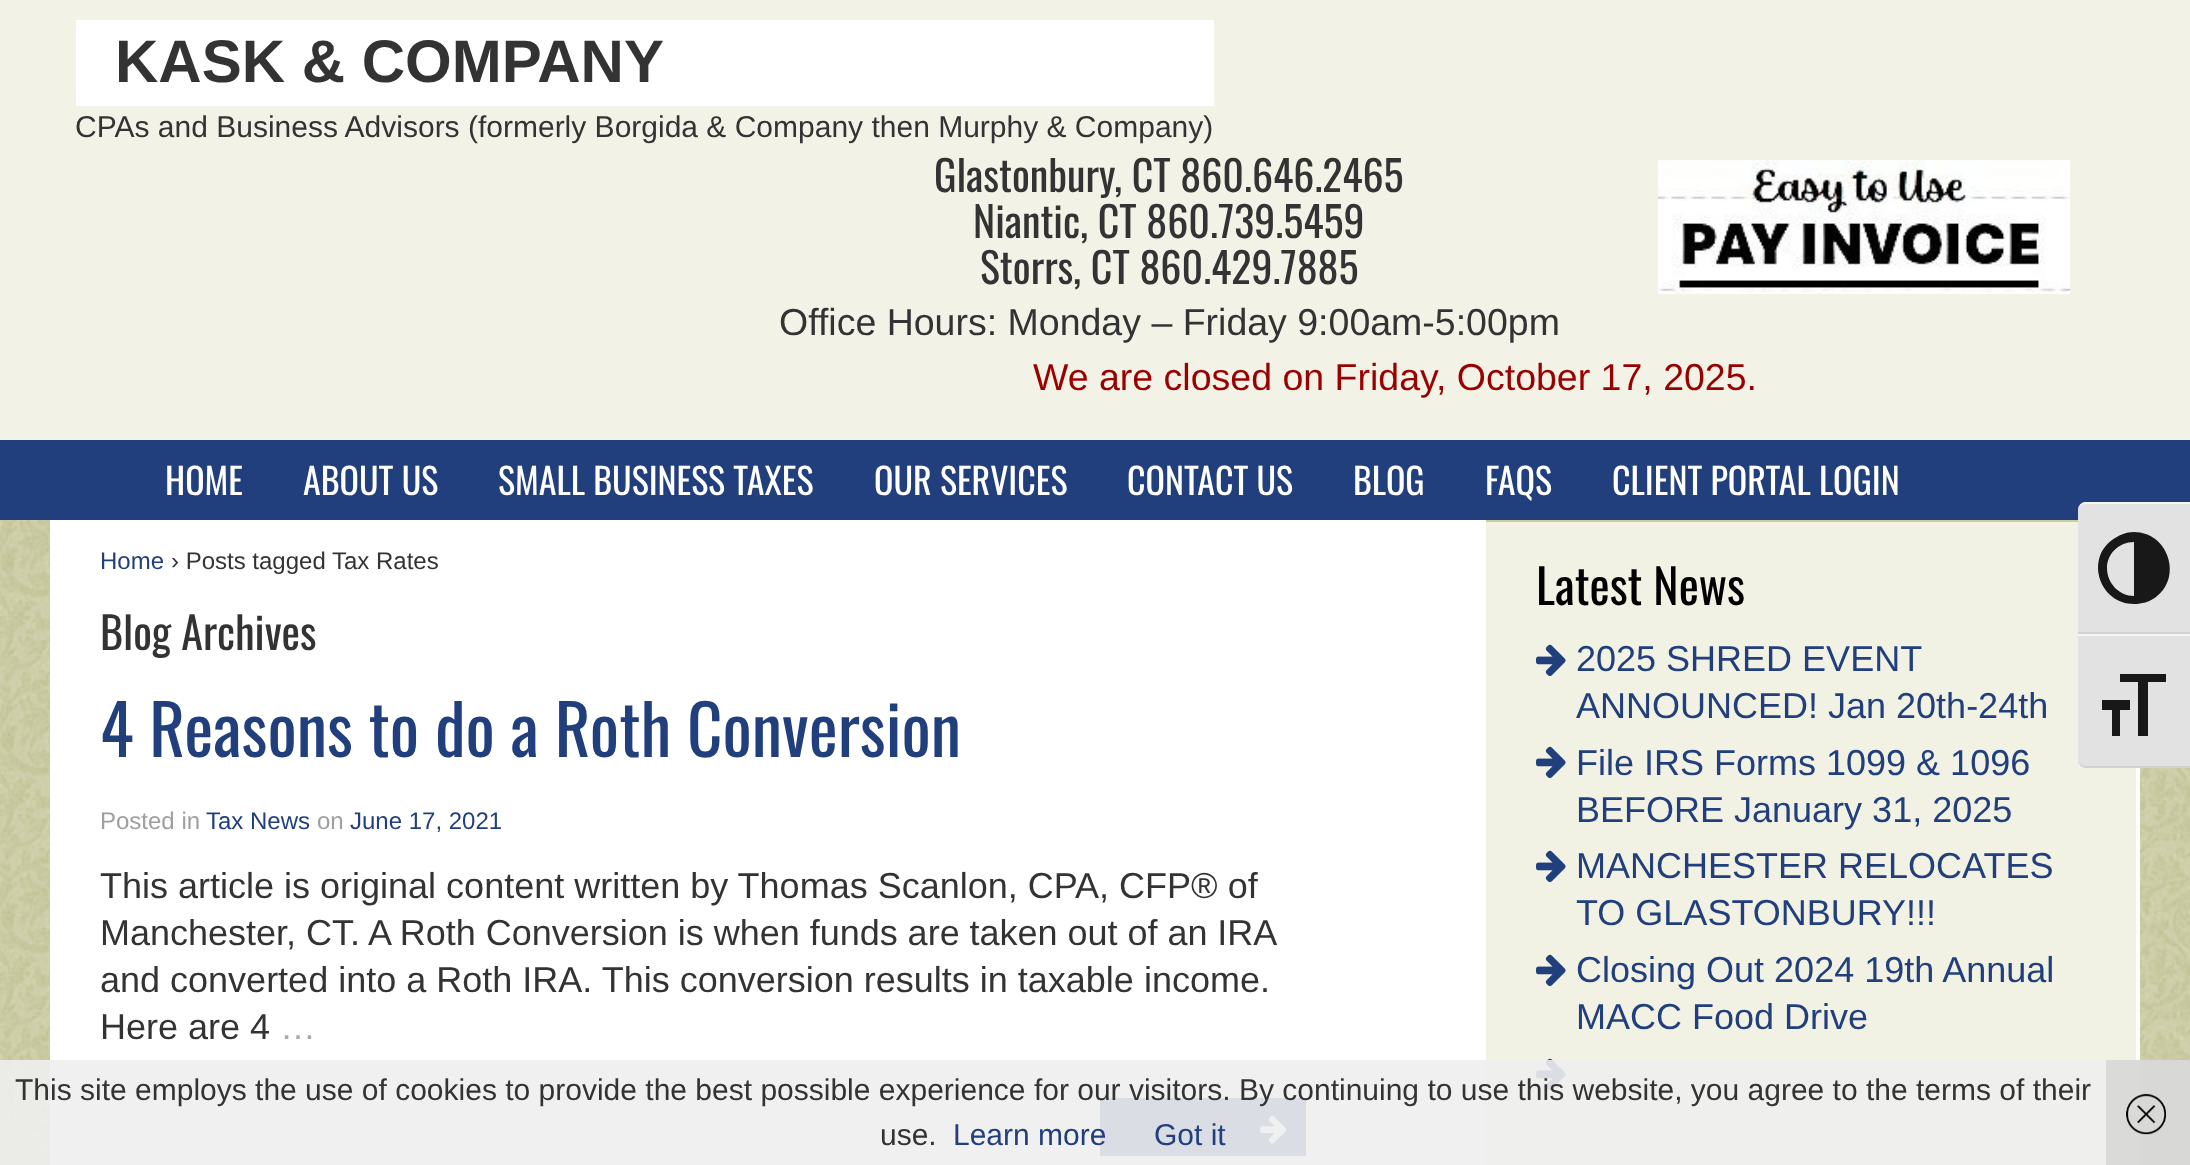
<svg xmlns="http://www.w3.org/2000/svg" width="2190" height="1165">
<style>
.a{font:bold 60px Liberation Sans;fill:#333}
.b{font:30px Liberation Sans;fill:#333}
.c{font:42px Oswald;fill:#333}
.d{font:37.5px Liberation Sans;fill:#333}
.e{font:37.5px Liberation Sans;fill:#900}
.f{font:36px Oswald;fill:#fff}
.g{font:24px Liberation Sans;fill:#213f7d}
.h{font:24px Liberation Sans;fill:#333}
.i{font:44px Oswald;fill:#333}
.j{font:69px Oswald;fill:#213f7d}
.k{font:24px Liberation Sans;fill:#9f9f9f}
.l{font:36px Liberation Sans;fill:#333}
.m{font:36px Liberation Sans;fill:#aaa}
.n{font:48px Oswald;fill:#000}
.o{font:36px Liberation Sans;fill:#213f7d}
.p{font:30px Liberation Sans;fill:#213f7d}
</style>
<rect width="100%" height="100%" fill="#fff"/>
<image href="1.png" x="0" y="520" width="2190" height="645"/>
<path fill="#f2f2e7" d="M0 0h2190v440H0z"/>
<path fill="#fff" d="M76 20h1138v86H76z"/>
<image href="2.png" x="1658" y="160" width="412" height="134"/>
<path fill="#213f7d" d="M0 440h2190v80H0z"/>
<path fill="#fff" d="M50 520h2090v645H50z"/>
<path fill="#213f7d" d="M1100 1098h206v58H1100z"/>
<image href="3.png" x="1260" y="1115" width="27" height="29"/>
<path fill="#f1f1e4" d="M1486 522h650v643H1486z"/>
<path fill="#cc9" d="M1486 520h592v2H1486z"/>
<image href="4.png" x="1536" y="644" width="30" height="32"/>
<image href="4.png" x="1536" y="746" width="30" height="32"/>
<image href="4.png" x="1536" y="850" width="30" height="32"/>
<image href="4.png" x="1536" y="954" width="30" height="32"/>
<image href="4.png" x="1536" y="1058" width="30" height="32"/>
<path fill="#e2e2e2" d="M2086 502h104v132h-112v-124c0-4.5 3.5-8 8-8z"/>
<path fill="#f5f5f5" d="M2086 504h104v-2h-104c-4 0-8 4-8 8c0-3 4-6 8-6z"/>
<path fill="#d2d2d2" d="M2078 632h112v2H2078z"/>
<path fill="#181818" d="M2134 532c-8 0-15 3-22 8c-27 20-12 64 22 64c8 0 15-2 22-7c27-20 12-65-22-65zm-27 36c0-14 12-26 27-26v54c-15 0-27-13-27-28z"/>
<path fill="#e2e2e2" d="M2078 634h112v134h-104c-4.5 0-8-3.5-8-8z"/>
<path fill="#f5f5f5" d="M2078 634h112v2H2078z"/>
<path fill="#d2d2d2" d="M2190 768v-2h-104c-4 0-8-3-8-6c0 4 4 8 8 8z"/>
<path fill="#181818" d="M2102 700h28v10h-10v26h-8v-26h-10zm64-18h-18v54h-10v-54h-18v-8h46z"/>
<path fill="#eeeeeee6" d="M0 1060h2190v105H0z"/>
<path fill="#cccccc99" d="M2106 1060h84v105H2106z"/>
<image href="5.png" x="2126" y="1093" width="40" height="42"/>
<text class="a" x="115" y="82">KASK &amp; COMPANY</text>
<text class="b" x="75" y="137">CPAs and Business Advisors (formerly Borgida &amp; Company then Murphy &amp; Company)</text>
<text class="c" x="934" y="192">Glastonbury, CT 860.646.2465</text>
<text class="c" x="973" y="238">Niantic, CT 860.739.5459</text>
<text class="c" x="980" y="284">Storrs, CT 860.429.7885</text>
<text class="d" x="779" y="335">Office Hours: Monday – Friday 9:00am-5:00pm</text>
<text class="e" x="1033" y="390">We are closed on Friday, October 17, 2025.</text>
<text class="f" x="165" y="495">HOME</text>
<text class="f" x="303" y="495">ABOUT US</text>
<text class="f" x="498" y="495">SMALL BUSINESS TAXES</text>
<text class="f" x="874" y="495">OUR SERVICES</text>
<text class="f" x="1127" y="495">CONTACT US</text>
<text class="f" x="1353" y="495">BLOG</text>
<text class="f" x="1485" y="495">FAQS</text>
<text class="f" x="1612" y="495">CLIENT PORTAL LOGIN</text>
<text class="g" x="100" y="569">Home</text>
<text class="h" x="171" y="569">› Posts tagged Tax Rates</text>
<text class="i" x="100" y="650">Blog Archives</text>
<text class="j" x="100" y="757">4 Reasons to do a Roth Conversion</text>
<text class="k" x="100" y="829">Posted in</text>
<text class="g" x="206" y="829">Tax News</text>
<text class="k" x="317" y="829">on</text>
<text class="g" x="350" y="829">June 17, 2021</text>
<text class="l" x="100" y="898">This article is original content written by Thomas Scanlon, CPA, CFP® of</text>
<text class="l" x="100" y="945" word-spacing="-0.1">Manchester, CT. A Roth Conversion is when funds are taken out of an IRA</text>
<text class="l" x="100" y="992">and converted into a Roth IRA. This conversion results in taxable income.</text>
<text class="l" x="100" y="1039">Here are 4</text>
<text class="m" x="280" y="1039">…</text>
<text class="n" x="1536" y="605">Latest News</text>
<text class="o" x="1576" y="671">2025 SHRED EVENT</text>
<text class="o" x="1576" y="718">ANNOUNCED! Jan 20th-24th</text>
<text class="o" x="1576" y="775">File IRS Forms 1099 &amp; 1096</text>
<text class="o" x="1576" y="822">BEFORE January 31, 2025</text>
<text class="o" x="1576" y="878">MANCHESTER RELOCATES</text>
<text class="o" x="1576" y="925">TO GLASTONBURY!!!</text>
<text class="o" x="1576" y="982">Closing Out 2024 19th Annual</text>
<text class="o" x="1576" y="1029">MACC Food Drive</text>
<text class="b" x="15" y="1100">This site employs the use of cookies to provide the best possible experience for our visitors. By continuing to use this website, you agree to the terms of their</text>
<text class="b" x="880" y="1145">use.</text>
<text class="p" x="953" y="1145">Learn more</text>
<text class="p" x="1154" y="1145">Got it</text>
</svg>
